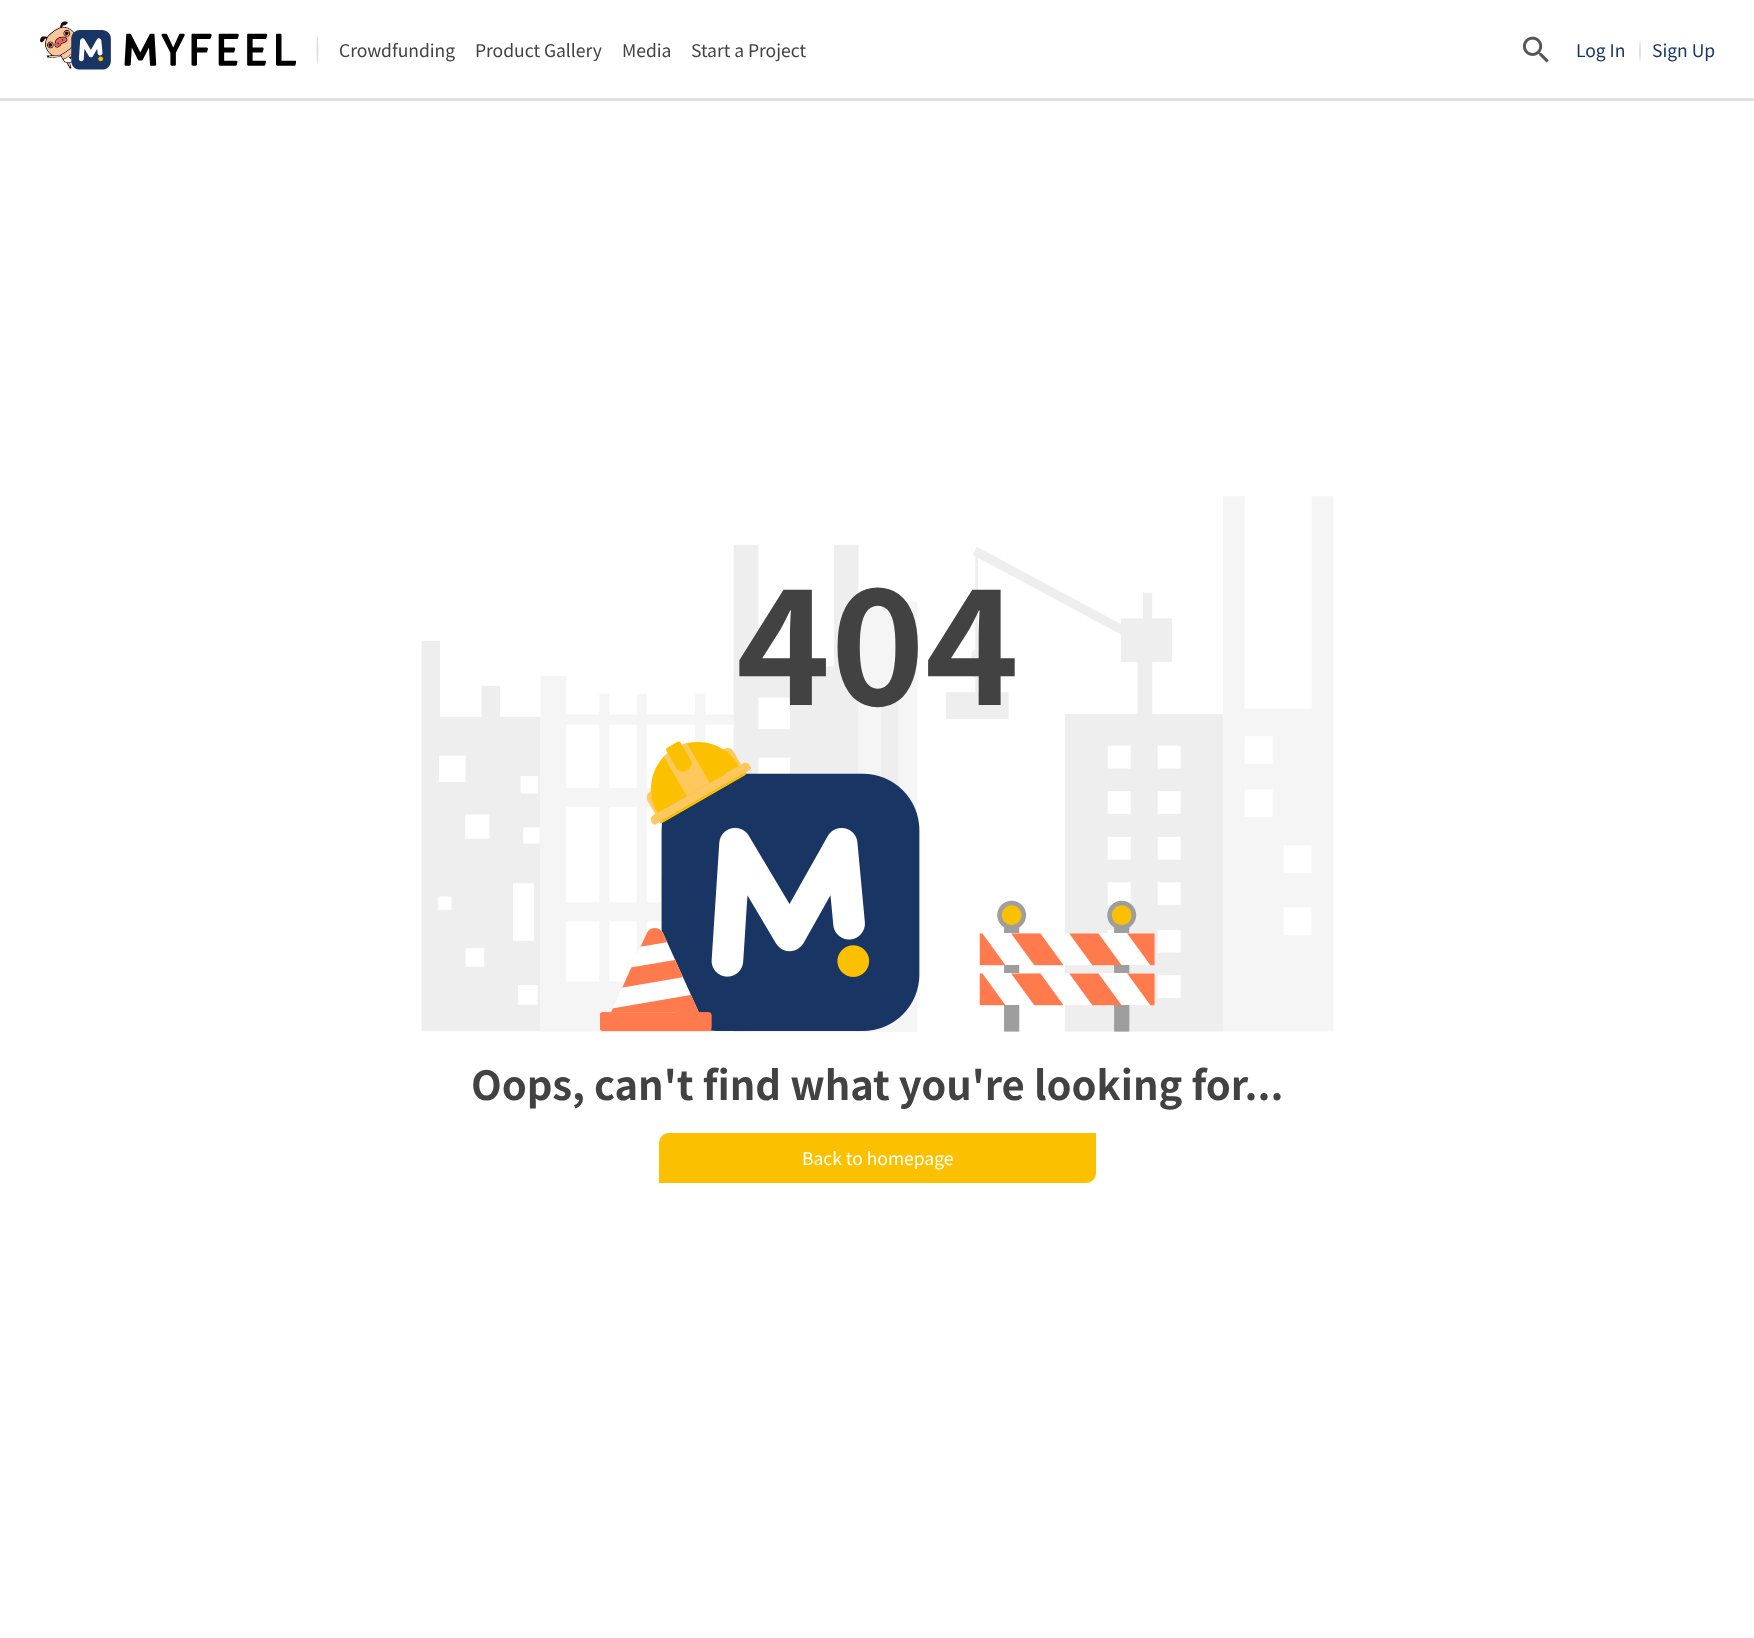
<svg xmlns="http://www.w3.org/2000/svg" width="1754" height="1638">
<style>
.a{font:17.5px Noto Sans TC;fill:#424242}
.b{font:17.5px Noto Sans TC;fill:#193563}
.c{font:bold 160px Noto Sans TC;fill:#424242}
.d{font:bold 40px Noto Sans TC;fill:#424242}
.e{font:17.5px Noto Sans TC;fill:#fff}
</style>
<rect width="100%" height="100%" fill="#fff"/>
<image href="1.png" x="40" y="21" width="256" height="49"/>
<ellipse fill="#e0e0e0" cx="317.5" cy="50" rx="1" ry="14"/>
<image href="2.png" x="1522" y="36" width="27" height="27"/>
<ellipse fill="#e0e0e0" cx="1640" cy="51" rx="1" ry="10"/>
<path fill="#e0e0e0" d="M0 98h1754v3H0z"/>
<image href="3.png" x="421" y="496" width="913" height="536"/>
<image href="4.png" x="600" y="741" width="555" height="291"/>
<path fill="#fbc100" d="M669 1133h427v40c0 5.5-4.5 10-10 10h-427v-40c0-5.5 4.5-10 10-10z"/>
<text class="a" x="339" y="57">Crowdfunding</text>
<text class="a" x="475" y="57">Product Gallery</text>
<text class="a" x="622" y="57">Media</text>
<text class="a" x="691" y="57">Start a Project</text>
<text class="b" x="1576" y="57">Log In</text>
<text class="b" x="1652" y="57">Sign Up</text>
<text class="c" x="736" y="705">404</text>
<text class="d" x="471" y="1100">Oops, can't find what you're looking for...</text>
<text class="e" x="802" y="1165">Back to homepage</text>
</svg>
